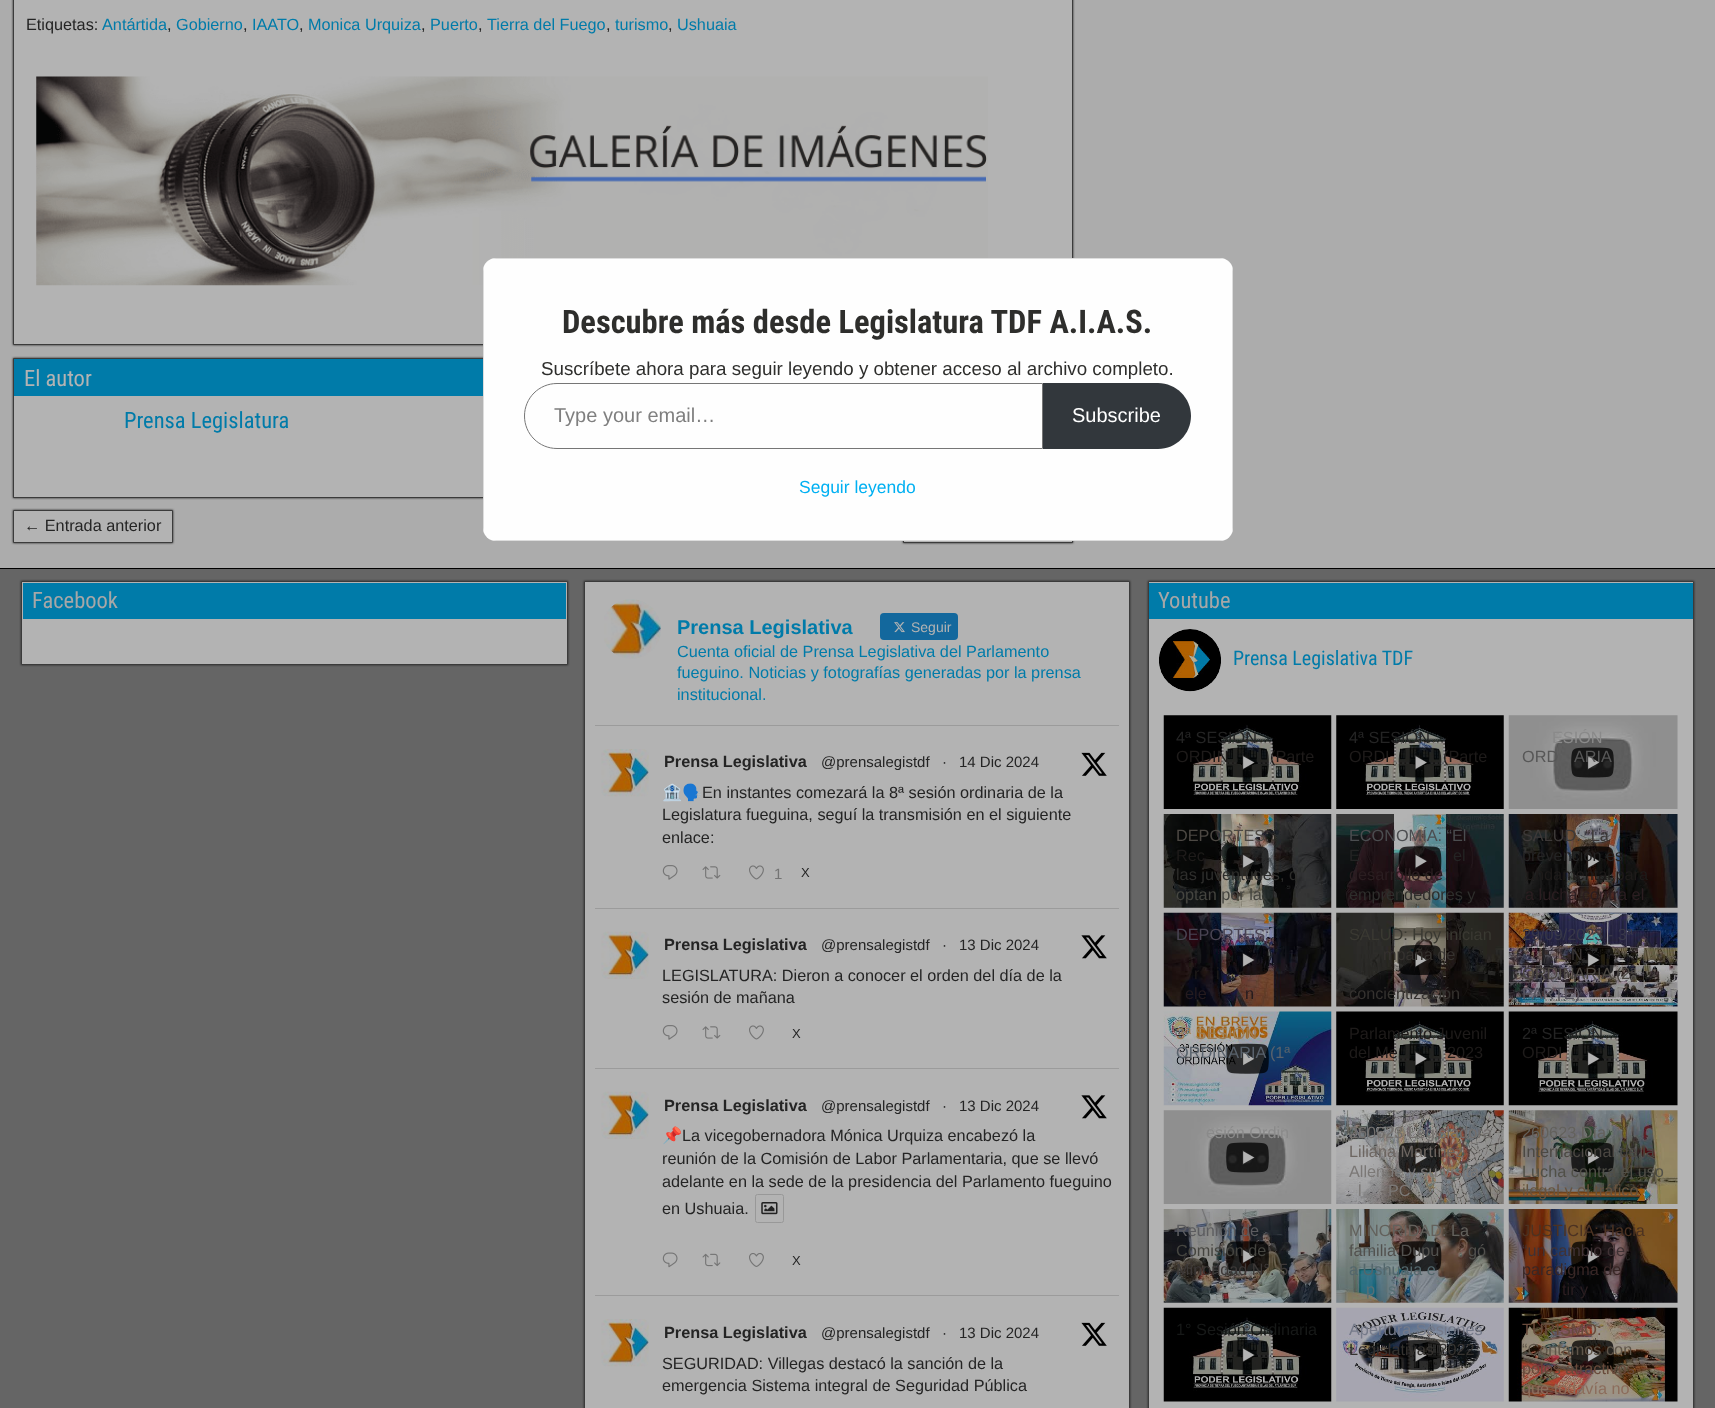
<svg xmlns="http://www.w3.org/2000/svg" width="1715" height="1408">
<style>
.a{font:16.25px Liberation Sans;fill:#242424}
.b{font:16.25px Liberation Sans;fill:#007ba9}
.c{font:22.5px Roboto Condensed;fill:#b3b3b3}
.d{font:22.5px Roboto Condensed;fill:#007ba9}
.e{font:22.5px Roboto Condensed;fill:#a7a7a7}
.f{font:bold 20px Liberation Sans;fill:#007ba9}
.g{font:14px Liberation Sans;fill:#b3b3b3}
.h{font:bold 16.25px Liberation Sans;fill:#242424}
.i{font:15px Liberation Sans;fill:#242424}
.j{font:16.25px Noto Color Emoji;fill:#242424}
.k{font:15px Liberation Sans;fill:#747474}
.l{font:13px Liberation Sans;fill:#242424}
.m{font:20px Roboto Condensed;fill:#007ba9}
.n{font:16.25px Liberation Sans;fill:#1e1b1a}
.o{font:16.25px Liberation Sans;fill:#8a8a8a}
.p{font:16.25px Liberation Sans;fill:#575757}
.q{font:16.25px Liberation Sans;fill:#4c4843}
.r{font:16.25px Liberation Sans;fill:#2e2e2c}
.s{font:16.25px Liberation Sans;fill:#454540}
.t{font:16.25px Liberation Sans;fill:#4b4d50}
.u{font:16.25px Liberation Sans;fill:#2b1e21}
.v{font:16.25px Liberation Sans;fill:#3d3938}
.w{font:16.25px Liberation Sans;fill:#494453}
.x{font:16.25px Liberation Sans;fill:#251b1f}
.y{font:16.25px Liberation Sans;fill:#3a3932}
.z{font:16.25px Liberation Sans;fill:#35322f}
.a1{font:16.25px Liberation Sans;fill:#393949}
.b1{font:16.25px Liberation Sans;fill:#58565f}
.c1{font:16.25px Liberation Sans;fill:#9e7d55}
.d1{font:16.25px Liberation Sans;fill:#59626c}
.e1{font:16.25px Liberation Sans;fill:#736f6d}
.f1{font:16.25px Liberation Sans;fill:#6d6661}
.g1{font:16.25px Liberation Sans;fill:#7b7876}
.h1{font:16.25px Liberation Sans;fill:#63615c}
.i1{font:16.25px Liberation Sans;fill:#515048}
.j1{font:16.25px Liberation Sans;fill:#67533e}
.k1{font:16.25px Liberation Sans;fill:#5c5c5f}
.l1{font:16.25px Liberation Sans;fill:#52514e}
.m1{font:16.25px Liberation Sans;fill:#53676c}
.n1{font:16.25px Liberation Sans;fill:#586f74}
.o1{font:16.25px Liberation Sans;fill:#4c3222}
.p1{font:16.25px Liberation Sans;fill:#403235}
.q1{font:16.25px Liberation Sans;fill:#392726}
.r1{font:16.25px Liberation Sans;fill:#171918}
.s1{font:16.25px Liberation Sans;fill:#757a89}
.t1{font:16.25px Liberation Sans;fill:#684a3b}
.u1{font:16.25px Liberation Sans;fill:#5f5549}
.v1{font:16.25px Liberation Sans;fill:#8c6d5c}
.w1{font:bold 32.5px Roboto Condensed;fill:#2e2e2c}
.x1{font:18.75px Liberation Sans;fill:#2e2e2c}
.y1{font:20px Liberation Sans;fill:#7f7f7f}
.z1{font:20px Liberation Sans;fill:#fff}
.a2{font:17.5px Liberation Sans;fill:#00b0f2}
</style>
<defs>
<clipPath id="clip1"><path d="M554 404h459v22H554z"/></clipPath>
</defs>
<rect width="100%" height="100%" fill="#acacac"/>
<path fill="#242424" filter="blur(1px)" d="M13 -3h1060v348H13z"/>
<path fill="#b3b3b3" stroke="#3b3b3b" d="M13.5 -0.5h1059v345H13.5z"/>
<image href="1.png" x="36" y="76" width="952" height="210"/>
<path fill="#242424" filter="blur(1px)" d="M13 358h1060v140H13z"/>
<path fill="#b3b3b3" d="M14 396h469v101H14z"/>
<path fill="none" stroke="#3b3b3b" d="M13.5 358.5h1059v139H13.5z"/>
<path fill="#007ba9" d="M14 359h469v37H14z"/>
<path fill="#242424" filter="blur(1px)" d="M13 510h160v33H13z"/>
<path fill="#b3b3b3" stroke="#3b3b3b" d="M13.5 510.5h159v32H13.5z"/>
<path fill="#242424" filter="blur(1px)" d="M903 510h170v33H903z"/>
<path fill="#b3b3b3" d="M904 541h168v1H904z"/>
<path fill="none" stroke="#3b3b3b" d="M903.5 510.5h169v32H903.5z"/>
<path fill="#656565" d="M0 569h1715v839H0z"/>
<path fill="#000" d="M0 568h1715v1H0z"/>
<path fill="#242424" filter="blur(1px)" d="M21 581h547v84H21z"/>
<path fill="#b3b3b3" stroke="#3b3b3b" d="M21.5 581.5h546v83H21.5z"/>
<path fill="#007ba9" d="M23 583h543v36H23z"/>
<path fill="#242424" filter="blur(1px)" d="M584 581h546v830H584z"/>
<path fill="#b3b3b3" stroke="#3b3b3b" d="M584.5 581.5h545v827H584.5z"/>
<path fill="#9b9b9b" d="M595 725h524v1H595z"/>
<image href="2.png" x="604" y="599" width="57" height="60"/>
<rect fill="#13689d" x="880" y="613" width="78" height="27" rx="4"/>
<image href="3.png" x="894" y="622" width="11" height="11"/>
<path fill="#9b9b9b" d="M595 908h524v1H595z"/>
<image href="4.png" x="601" y="749" width="48" height="48"/>
<image href="5.png" x="1081" y="752" width="26" height="24"/>
<image href="6.png" x="662" y="865" width="16" height="15"/>
<image href="7.png" x="702" y="866" width="19" height="13"/>
<image href="8.png" x="749" y="865" width="15" height="15"/>
<path fill="#9b9b9b" d="M595 1068h524v1H595z"/>
<image href="9.png" x="601" y="931" width="48" height="48"/>
<image href="10.png" x="1081" y="935" width="26" height="24"/>
<image href="6.png" x="662" y="1025" width="16" height="15"/>
<image href="7.png" x="702" y="1026" width="19" height="13"/>
<image href="8.png" x="749" y="1025" width="15" height="15"/>
<path fill="#9b9b9b" d="M595 1295h524v1H595z"/>
<image href="9.png" x="601" y="1091" width="48" height="48"/>
<image href="10.png" x="1081" y="1095" width="26" height="24"/>
<rect fill="none" stroke="#989898" x="755.5" y="1194.5" width="28" height="28" rx="2"/>
<image href="11.png" x="761" y="1202" width="17" height="13"/>
<image href="12.png" x="662" y="1252" width="16" height="16"/>
<image href="13.png" x="702" y="1253" width="19" height="14"/>
<image href="14.png" x="749" y="1253" width="15" height="14"/>
<image href="4.png" x="601" y="1319" width="48" height="48"/>
<image href="5.png" x="1081" y="1322" width="26" height="24"/>
<path fill="#242424" filter="blur(1px)" d="M1148 581h546v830H1148z"/>
<path fill="#b3b3b3" stroke="#3b3b3b" d="M1148.5 581.5h545v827H1148.5z"/>
<path fill="#007ba9" d="M1149 583h544v36H1149z"/>
<image href="15.png" x="1159" y="629" width="62" height="63"/>
<image href="16.png" x="1163" y="715" width="169" height="94"/>
<path fill="#b3b3b3" d="M1242.5 770v-15l12.5 7.5z"/>
<image href="17.png" x="1226" y="747" width="43" height="31"/>
<image href="18.png" x="1336" y="715" width="168" height="94"/>
<path fill="#b3b3b3" d="M1415 770v-15l12.5 7.5z"/>
<image href="19.png" x="1398" y="747" width="44" height="31"/>
<image href="20.png" x="1508" y="715" width="170" height="94"/>
<path fill="#b3b3b3" d="M1587.5 770v-15l12.5 7.5z"/>
<image href="21.png" x="1571" y="747" width="43" height="31"/>
<image href="22.png" x="1163" y="814" width="169" height="94"/>
<path fill="#b3b3b3" d="M1242.5 869v-15l12.5 7z"/>
<image href="23.png" x="1226" y="846" width="43" height="31"/>
<image href="24.png" x="1336" y="814" width="168" height="94"/>
<path fill="#b3b3b3" d="M1415 869v-15l12.5 7z"/>
<image href="25.png" x="1398" y="846" width="44" height="31"/>
<image href="26.png" x="1508" y="814" width="170" height="94"/>
<path fill="#b3b3b3" d="M1587.5 869v-15l12.5 7z"/>
<image href="27.png" x="1571" y="846" width="43" height="31"/>
<image href="28.png" x="1163" y="912" width="169" height="95"/>
<path fill="#b3b3b3" d="M1242.5 967.5v-15l12.5 7.5z"/>
<image href="29.png" x="1226" y="945" width="43" height="30"/>
<image href="30.png" x="1336" y="912" width="168" height="95"/>
<path fill="#b3b3b3" d="M1415 967.5v-15l12.5 7.5z"/>
<image href="31.png" x="1398" y="945" width="44" height="30"/>
<image href="32.png" x="1508" y="912" width="170" height="95"/>
<path fill="#b3b3b3" d="M1587.5 967.5v-15l12.5 7.5z"/>
<image href="33.png" x="1571" y="945" width="43" height="30"/>
<image href="34.png" x="1163" y="1011" width="169" height="95"/>
<path fill="#b3b3b3" d="M1242.5 1066v-15l12.5 8z"/>
<image href="35.png" x="1226" y="1043" width="43" height="31"/>
<image href="36.png" x="1336" y="1011" width="168" height="95"/>
<path fill="#b3b3b3" d="M1415 1066v-15l12.5 8z"/>
<image href="37.png" x="1398" y="1043" width="44" height="31"/>
<image href="38.png" x="1508" y="1011" width="170" height="95"/>
<path fill="#b3b3b3" d="M1587.5 1066v-15l12.5 8z"/>
<image href="39.png" x="1571" y="1043" width="43" height="31"/>
<image href="40.png" x="1163" y="1110" width="169" height="94"/>
<path fill="#b3b3b3" d="M1242.5 1165v-15l12.5 7.5z"/>
<image href="41.png" x="1226" y="1142" width="43" height="31"/>
<image href="42.png" x="1336" y="1110" width="168" height="94"/>
<path fill="#b3b3b3" d="M1415 1165v-15l12.5 7.5z"/>
<image href="43.png" x="1398" y="1142" width="44" height="31"/>
<image href="44.png" x="1508" y="1110" width="170" height="94"/>
<path fill="#b3b3b3" d="M1587.5 1165v-15l12.5 7.5z"/>
<image href="45.png" x="1571" y="1142" width="43" height="31"/>
<image href="46.png" x="1163" y="1209" width="169" height="94"/>
<path fill="#b3b3b3" d="M1242.5 1264v-15l12.5 7z"/>
<image href="47.png" x="1226" y="1241" width="43" height="31"/>
<image href="48.png" x="1336" y="1209" width="168" height="94"/>
<path fill="#b3b3b3" d="M1415 1264v-15l12.5 7z"/>
<image href="49.png" x="1398" y="1241" width="44" height="31"/>
<image href="50.png" x="1508" y="1209" width="170" height="94"/>
<path fill="#b3b3b3" d="M1587.5 1264v-15l12.5 7z"/>
<image href="51.png" x="1571" y="1241" width="43" height="31"/>
<image href="52.png" x="1163" y="1307" width="169" height="95"/>
<path fill="#b3b3b3" d="M1242.5 1362.5v-15l12.5 7.5z"/>
<image href="53.png" x="1226" y="1340" width="43" height="30"/>
<image href="54.png" x="1336" y="1307" width="168" height="95"/>
<path fill="#b3b3b3" d="M1415 1362.5v-15l12.5 7.5z"/>
<image href="55.png" x="1398" y="1340" width="44" height="30"/>
<image href="56.png" x="1508" y="1307" width="170" height="95"/>
<path fill="#b3b3b3" d="M1587.5 1362.5v-15l12.5 7.5z"/>
<image href="57.png" x="1571" y="1340" width="43" height="30"/>
<rect fill="#fefefe" x="483" y="258" width="750" height="283" rx="13"/>
<path fill="#ddd" fill-rule="evenodd" d="M483 271v257l1 5v-267zm13-13l-5 1h734l-5-1zm737 13l-1-5v267l1-5zm-13 270l5-1h-734l5 1z"/>
<path fill="none" stroke="#767676" d="M557 383.5h485.5v65h-485.5c-18 0-32.5-14.5-32.5-32.5c0-18 14.5-32.5 32.5-32.5z"/>
<path fill="#32373c" d="M1043 383h115c18 0 33 15 33 33c0 18-15 33-33 33h-115z"/>
<text class="a" x="26" y="30">Etiquetas:</text>
<text class="b" x="102" y="30">Antártida</text>
<text class="a" x="167" y="30">,</text>
<text class="b" x="176" y="30">Gobierno</text>
<text class="a" x="243" y="30">,</text>
<text class="b" x="252" y="30">IAATO</text>
<text class="a" x="299" y="30">,</text>
<text class="b" x="308" y="30">Monica Urquiza</text>
<text class="a" x="421" y="30">,</text>
<text class="b" x="430" y="30">Puerto</text>
<text class="a" x="478" y="30">,</text>
<text class="b" x="487" y="30">Tierra del Fuego</text>
<text class="a" x="606" y="30">,</text>
<text class="b" x="615" y="30">turismo</text>
<text class="a" x="668" y="30">,</text>
<text class="b" x="677" y="30">Ushuaia</text>
<text class="c" x="24" y="386">El autor</text>
<text class="d" x="124" y="428">Prensa Legislatura</text>
<text class="a" x="24" y="531">← Entrada anterior</text>
<text class="e" x="32" y="608">Facebook</text>
<text class="f" x="677" y="634">Prensa Legislativa</text>
<text class="g" x="911" y="632">Seguir</text>
<text class="b" x="677" y="657">Cuenta oficial de Prensa Legislativa del Parlamento</text>
<text class="b" x="677" y="678">fueguino. Noticias y fotografías generadas por la prensa</text>
<text class="b" x="677" y="700">institucional.</text>
<text class="h" x="664" y="767">Prensa Legislativa</text>
<text class="i" x="821" y="767">@prensalegistdf</text>
<text class="i" x="942" y="767">·</text>
<text class="i" x="959" y="767">14 Dic 2024</text>
<text class="j" x="662" y="798">🏦🗣️</text>
<text class="a" x="702" y="798">En instantes comezará la 8ª sesión ordinaria de la</text>
<text class="a" x="662" y="820">Legislatura fueguina, seguí la transmisión en el siguiente</text>
<text class="a" x="662" y="843">enlace:</text>
<text class="k" x="774" y="879">1</text>
<text class="l" x="801" y="877">X</text>
<text class="h" x="664" y="950">Prensa Legislativa</text>
<text class="i" x="821" y="950">@prensalegistdf</text>
<text class="i" x="942" y="950">·</text>
<text class="i" x="959" y="950">13 Dic 2024</text>
<text class="a" x="662" y="981">LEGISLATURA: Dieron a conocer el orden del día de la</text>
<text class="a" x="662" y="1003">sesión de mañana</text>
<text class="l" x="792" y="1038">X</text>
<text class="h" x="664" y="1111">Prensa Legislativa</text>
<text class="i" x="821" y="1111">@prensalegistdf</text>
<text class="i" x="942" y="1111">·</text>
<text class="i" x="959" y="1111">13 Dic 2024</text>
<text class="j" x="662" y="1141">📌</text>
<text class="a" x="682" y="1141">La vicegobernadora Mónica Urquiza encabezó la</text>
<text class="a" x="662" y="1164">reunión de la Comisión de Labor Parlamentaria, que se llevó</text>
<text class="a" x="662" y="1187">adelante en la sede de la presidencia del Parlamento fueguino</text>
<text class="a" x="662" y="1214">en Ushuaia.</text>
<text class="l" x="792" y="1265">X</text>
<text class="h" x="664" y="1338">Prensa Legislativa</text>
<text class="i" x="821" y="1338">@prensalegistdf</text>
<text class="i" x="942" y="1338">·</text>
<text class="i" x="959" y="1338">13 Dic 2024</text>
<text class="a" x="662" y="1369">SEGURIDAD: Villegas destacó la sanción de la</text>
<text class="a" x="662" y="1391">emergencia Sistema integral de Seguridad Pública</text>
<text class="e" x="1158" y="608">Youtube</text>
<text class="m" x="1233" y="665">Prensa Legislativa TDF</text>
<text class="a" x="1176" y="743">4ª SESIÓN</text>
<text class="n" x="1176" y="762">ORDIN</text>
<text class="n" x="1270" y="762">(Parte</text>
<text class="a" x="1349" y="743">4ª SESIÓN</text>
<text class="n" x="1349" y="762">ORDI</text>
<text class="n" x="1443" y="762">(Parte</text>
<text class="o" x="1552" y="743">ESIÓN</text>
<text class="p" x="1522" y="762">ORD</text>
<text class="p" x="1574" y="762">ARIA</text>
<text class="q" x="1176" y="841">DEPORTES:</text>
<text class="n" x="1176" y="861">Rec</text>
<text class="r" x="1176" y="880">las juventudes, q</text>
<text class="s" x="1176" y="900">optan por la</text>
<text class="t" x="1349" y="841">ECONOMÍA: “El</text>
<text class="a" x="1349" y="861">E</text>
<text class="a" x="1453" y="861">el</text>
<text class="u" x="1349" y="880">desarrollo de</text>
<text class="r" x="1349" y="900">emprendedores y</text>
<text class="v" x="1522" y="841">SALUD: “La</text>
<text class="a" x="1522" y="861">prevención es</text>
<text class="n" x="1526" y="880">undamental para</text>
<text class="u" x="1525" y="900">a lucha contra el</text>
<text class="w" x="1176" y="940">DEPORTES:</text>
<text class="n" x="1194" y="979">r</text>
<text class="n" x="1216" y="979">i</text>
<text class="x" x="1185" y="999">ele</text>
<text class="x" x="1245" y="999">n</text>
<text class="y" x="1349" y="940">SALUD: Hoy inician</text>
<text class="z" x="1383" y="960">mpaña de</text>
<text class="z" x="1349" y="999">concientización</text>
<text class="a1" x="1522" y="940">29/09/2023 - 3ª</text>
<text class="v" x="1571" y="960">N</text>
<text class="q" x="1522" y="979">ORDINARIA (2ª</text>
<text class="b1" x="1522" y="999">PARTE)</text>
<text class="c1" x="1176" y="1039">3ª SESIÓN</text>
<text class="d1" x="1176" y="1058">ORDINARIA (1ª</text>
<text class="n" x="1349" y="1039">Parlamento Juvenil</text>
<text class="n" x="1349" y="1058">del Me</text>
<text class="n" x="1447" y="1058">2023</text>
<text class="a" x="1522" y="1039">2ª SESIÓN</text>
<text class="n" x="1522" y="1058">ORDI</text>
<text class="o" x="1206" y="1138">esión Ordin</text>
<text class="e1" x="1349" y="1138">260623 Legisladora</text>
<text class="f1" x="1349" y="1157">Liliana Martínez</text>
<text class="g1" x="1349" y="1177">Allende y su visita</text>
<text class="g1" x="1358" y="1196">l</text>
<text class="g1" x="1388" y="1196">PC</text>
<text class="h1" x="1522" y="1138">260623 Día</text>
<text class="q" x="1522" y="1157">Internacional de la</text>
<text class="i1" x="1522" y="1177">Lucha contra el uso</text>
<text class="j1" x="1522" y="1196">ilegal y el tráfico</text>
<text class="k1" x="1176" y="1236">Reunión de</text>
<text class="s" x="1176" y="1256">Comisión de</text>
<text class="v" x="1176" y="1275">Minoridad N°. 5</text>
<text class="h1" x="1349" y="1236">MINORIDAD: La</text>
<text class="l1" x="1349" y="1256">familia Dupu</text>
<text class="l1" x="1468" y="1256">gó</text>
<text class="m1" x="1349" y="1275">a Ushuaia e</text>
<text class="n1" x="1366" y="1295">p</text>
<text class="n1" x="1388" y="1295">s</text>
<text class="o1" x="1522" y="1236">JUSTICIA: Hacia</text>
<text class="p1" x="1522" y="1256">“un cambio de</text>
<text class="q1" x="1522" y="1275">paradigma de</text>
<text class="u" x="1522" y="1295">i</text>
<text class="u" x="1562" y="1295">tir y</text>
<text class="r1" x="1176" y="1335">1° Sesión Ordinaria</text>
<text class="s1" x="1349" y="1335">Apertura Sesiones</text>
<text class="z" x="1349" y="1355">Legislativas 2022</text>
<text class="t1" x="1522" y="1335">TURISMO:</text>
<text class="u1" x="1522" y="1355">“Contamos con</text>
<text class="t1" x="1522" y="1374">polos atractivos</text>
<text class="v1" x="1522" y="1394">que todavía no</text>
<text class="w1" x="562" y="333">Descubre más desde Legislatura TDF A.I.A.S.</text>
<text class="x1" x="541" y="375">Suscríbete ahora para seguir leyendo y obtener acceso al archivo completo.</text>
<g clip-path="url(#clip1)">
<text class="y1" x="554" y="422">Type your email…</text>
</g>
<text class="z1" x="1072" y="422">Subscribe</text>
<text class="a2" x="799" y="493">Seguir leyendo</text>
</svg>
